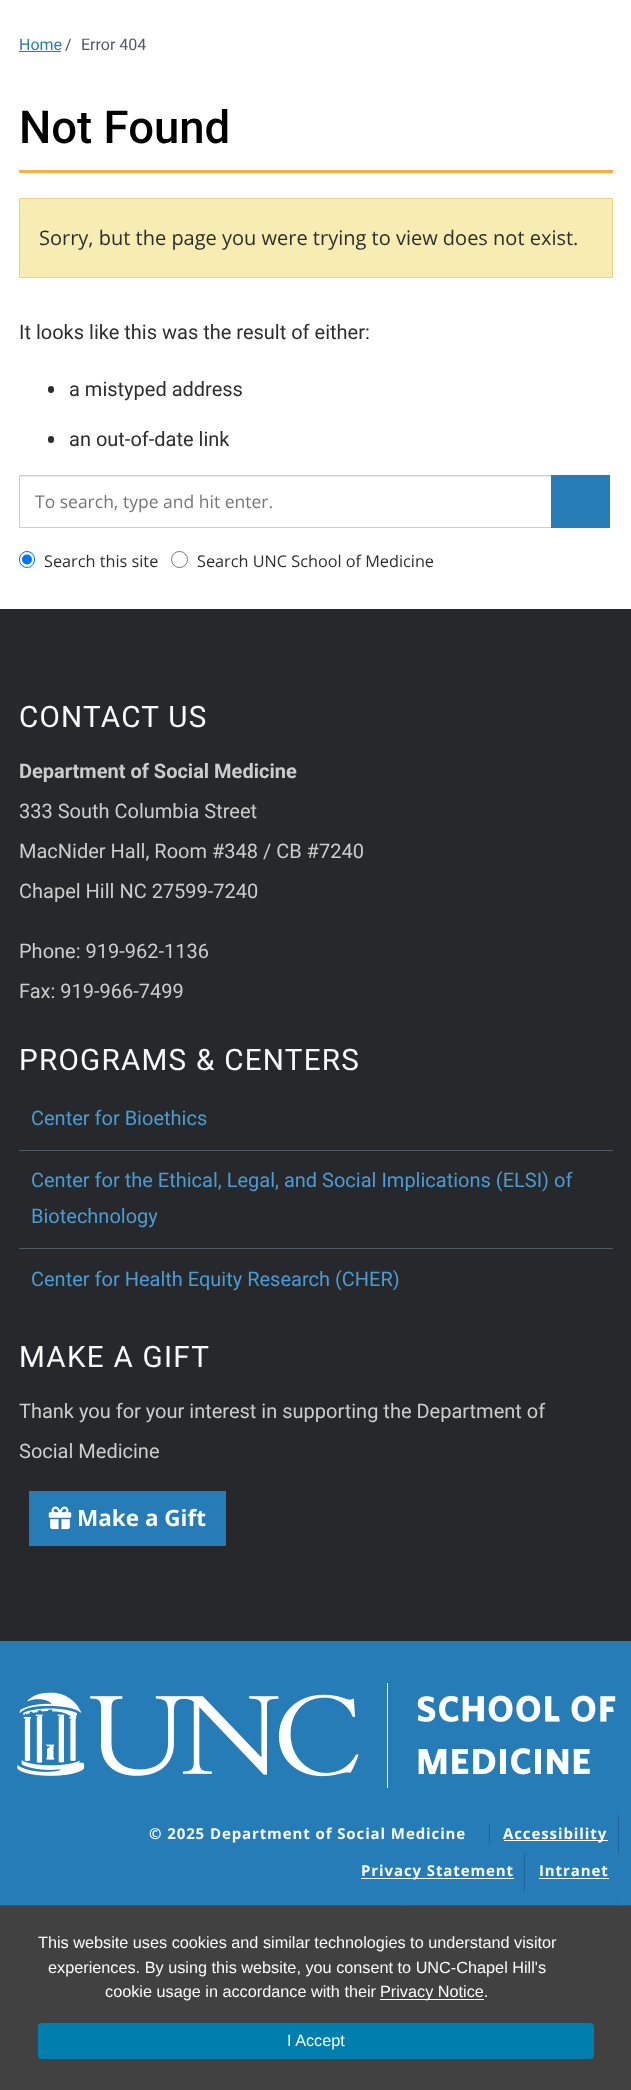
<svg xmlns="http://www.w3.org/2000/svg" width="631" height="2090">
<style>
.a{font:16px Roboto;fill:#257cb7}
.b{font:16px Roboto;fill:#4f4f4f}
.c{font:16px Roboto;fill:#505962}
.d{font:500 45.5px Roboto;fill:#000}
.e{font:20px Open Sans;fill:#2e2e2e}
.f{font:20px Roboto;fill:#2e2e2e}
.g{font:17.5px Open Sans;fill:#767676}
.h{font:16.25px Open Sans;fill:#2e2e2e}
.i{font:29.6px Roboto;letter-spacing:1.25px;fill:#fafafa}
.j{font:bold 20px Roboto;fill:#ccc}
.k{font:20px Roboto;fill:#ccc}
.l{font:20px Roboto;fill:#4b9cd3}
.m{font:bold 22.5px Open Sans;fill:#fafafa}
.n{font:bold 15px Open Sans;letter-spacing:0.9px;fill:#fafafa}
.o{font:16.25px Liberation Sans;fill:#fafafa}
</style>
<rect width="100%" height="100%" fill="#fff"/>
<path fill="#257cb7" d="M19 51h42v1H19z"/>
<path fill="#fbaf41" d="M19 170h594v3H19z"/>
<path fill="#f7ecb2" stroke="#f3cf87" d="M19.5 198.5h593v79H19.5z"/>
<rect fill="#2e2e2e" x="48" y="386" width="6" height="7" rx="3"/>
<rect fill="#2e2e2e" x="48" y="436" width="6" height="7" rx="3"/>
<path fill="#ececec" d="M20 476h531v1H20z"/>
<path fill="none" stroke="#ccc" d="M19.5 475.5h533v52H19.5z"/>
<path fill="#257cb7" d="M551 475h59v53H551z"/>
<rect fill="none" stroke="#0075ff" x="19.5" y="551.5" width="15" height="16" rx="7.5"/>
<circle fill="#0075ff" cx="27" cy="559.5" r="5"/>
<circle fill="none" stroke="#767676" cx="179.5" cy="559.5" r="8"/>
<path fill="#26282b" d="M0 609h631v1032H0z"/>
<path fill="#505962" d="M19 1150h594v1H19z"/>
<path fill="#505962" d="M19 1248h594v1H19z"/>
<path fill="#257cb7" d="M29 1491h197v55H29z"/>
<image href="1.png" x="48" y="1506" width="24" height="24"/>
<path fill="#257cb7" d="M0 1641h631v264H0z"/>
<image href="2.png" x="17" y="1683" width="599" height="105"/>
<path fill="#1e6392" d="M489 1824h1v20H489z"/>
<path fill="#1e6392" d="M618 1815h1v38H618z"/>
<path fill="#fff" d="M504 1840h104v1H504z"/>
<path fill="#1e6392" d="M524 1853h1v37H524z"/>
<path fill="#fff" d="M361 1878h153v1H361z"/>
<path fill="#fff" d="M539 1878h70v1H539z"/>
<path fill="#1e6392" d="M404 1903h1v2H404z"/>
<path fill="#1e6392" d="M618 1903h1v2H618z"/>
<path fill="#414141" d="M0 1906h631v184H0z"/>
<path fill="#515151" d="M0 1905h631v1H0z"/>
<path fill="#fff" d="M380 1999h104v1H380z"/>
<rect fill="#007fae" x="38" y="2023" width="556" height="36" rx="4"/>
<text class="a" x="19" y="50">Home</text>
<text class="b" x="65" y="50">/</text>
<text class="c" x="81" y="50">Error 404</text>
<text class="d" x="19" y="143">Not Found</text>
<text class="e" x="39" y="245">Sorry, but the page you were trying to view does not exist.</text>
<text class="f" x="19" y="339">It looks like this was the result of either:</text>
<text class="f" x="69" y="396">a mistyped address</text>
<text class="f" x="69" y="446">an out-of-date link</text>
<text class="g" x="35" y="508">To search, type and hit enter.</text>
<text class="h" x="44" y="567">Search this site</text>
<text class="h" x="197" y="567">Search UNC School of Medicine</text>
<text class="i" x="19" y="727">CONTACT US</text>
<text class="j" x="19" y="778">Department of Social Medicine</text>
<text class="k" x="19" y="818">333 South Columbia Street</text>
<text class="k" x="19" y="858">MacNider Hall, Room #348 / CB #7240</text>
<text class="k" x="19" y="898">Chapel Hill NC 27599-7240</text>
<text class="k" x="19" y="958">Phone: 919-962-1136</text>
<text class="k" x="19" y="998">Fax: 919-966-7499</text>
<text class="i" x="19" y="1070">PROGRAMS &amp; CENTERS</text>
<text class="l" x="31" y="1125">Center for Bioethics</text>
<text class="l" x="31" y="1187">Center for the Ethical, Legal, and Social Implications (ELSI) of</text>
<text class="l" x="31" y="1223">Biotechnology</text>
<text class="l" x="31" y="1286">Center for Health Equity Research (CHER)</text>
<text class="i" x="19" y="1367">MAKE A GIFT</text>
<text class="k" x="19" y="1418">Thank you for your interest in supporting the Department of</text>
<text class="k" x="19" y="1458">Social Medicine</text>
<text class="m" x="77" y="1526">Make a Gift</text>
<text class="n" x="149" y="1839">© 2025 Department of Social Medicine</text>
<text class="n" x="503" y="1839">Accessibility</text>
<text class="n" x="361" y="1876">Privacy Statement</text>
<text class="n" x="539" y="1876">Intranet</text>
<text class="o" x="38" y="1948">This website uses cookies and similar technologies to understand visitor</text>
<text class="o" x="48" y="1973">experiences. By using this website, you consent to UNC-Chapel Hill's</text>
<text class="o" x="105" y="1997">cookie usage in accordance with their</text>
<text class="o" x="380" y="1997">Privacy Notice.</text>
<text class="o" x="287" y="2046">I Accept</text>
</svg>
